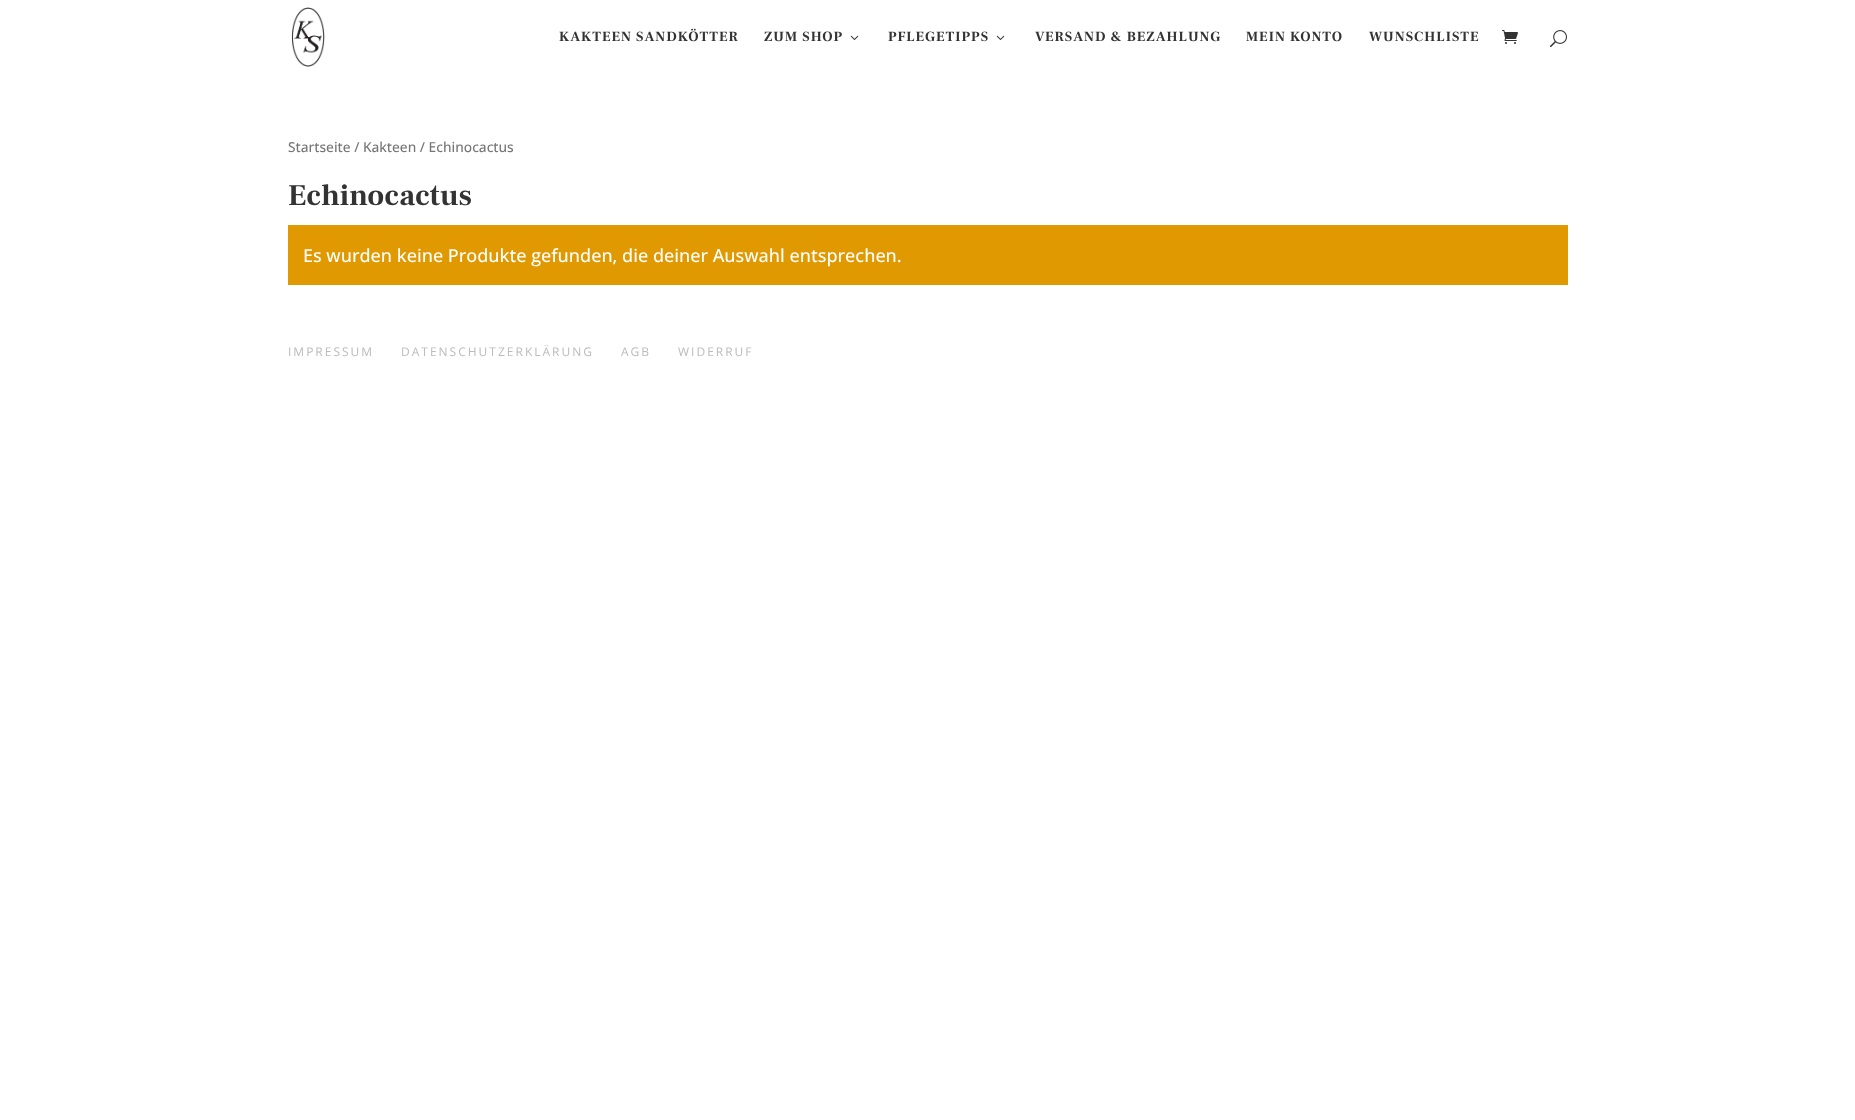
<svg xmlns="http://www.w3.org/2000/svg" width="1855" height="1120">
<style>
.a{font:bold 14px Frank Ruhl Libre;letter-spacing:1px;fill:#333}
.b{font:500 13.75px Open Sans;fill:#767676}
.c{font:bold 30px Frank Ruhl Libre;fill:#333}
.d{font:500 18px Open Sans;fill:#fff}
.e{font:12px Open Sans;letter-spacing:2px;fill:#bbb}
</style>
<rect width="100%" height="100%" fill="#fff"/>
<image href="1.png" x="291" y="7" width="34" height="60"/>
<image href="2.png" x="850" y="35" width="9" height="5"/>
<image href="2.png" x="996" y="35" width="9" height="5"/>
<image href="3.png" x="1502" y="30" width="16" height="14"/>
<image href="4.png" x="1550" y="30" width="17" height="18"/>
<path fill="#e09900" d="M288 225h1280v60H288z"/>
<text class="a" x="559" y="41">KAKTEEN SANDKÖTTER</text>
<text class="a" x="764" y="41">ZUM SHOP</text>
<text class="a" x="888" y="41">PFLEGETIPPS</text>
<text class="a" x="1035" y="41">VERSAND &amp; BEZAHLUNG</text>
<text class="a" x="1246" y="41">MEIN KONTO</text>
<text class="a" x="1369" y="41">WUNSCHLISTE</text>
<text class="b" x="288" y="152">Startseite / Kakteen / Echinocactus</text>
<text class="c" x="288" y="205">Echinocactus</text>
<text class="d" x="303" y="262">Es wurden keine Produkte gefunden, die deiner Auswahl entsprechen.</text>
<text class="e" x="288" y="356">IMPRESSUM</text>
<text class="e" x="401" y="356">DATENSCHUTZERKLÄRUNG</text>
<text class="e" x="621" y="356">AGB</text>
<text class="e" x="678" y="356">WIDERRUF</text>
</svg>
